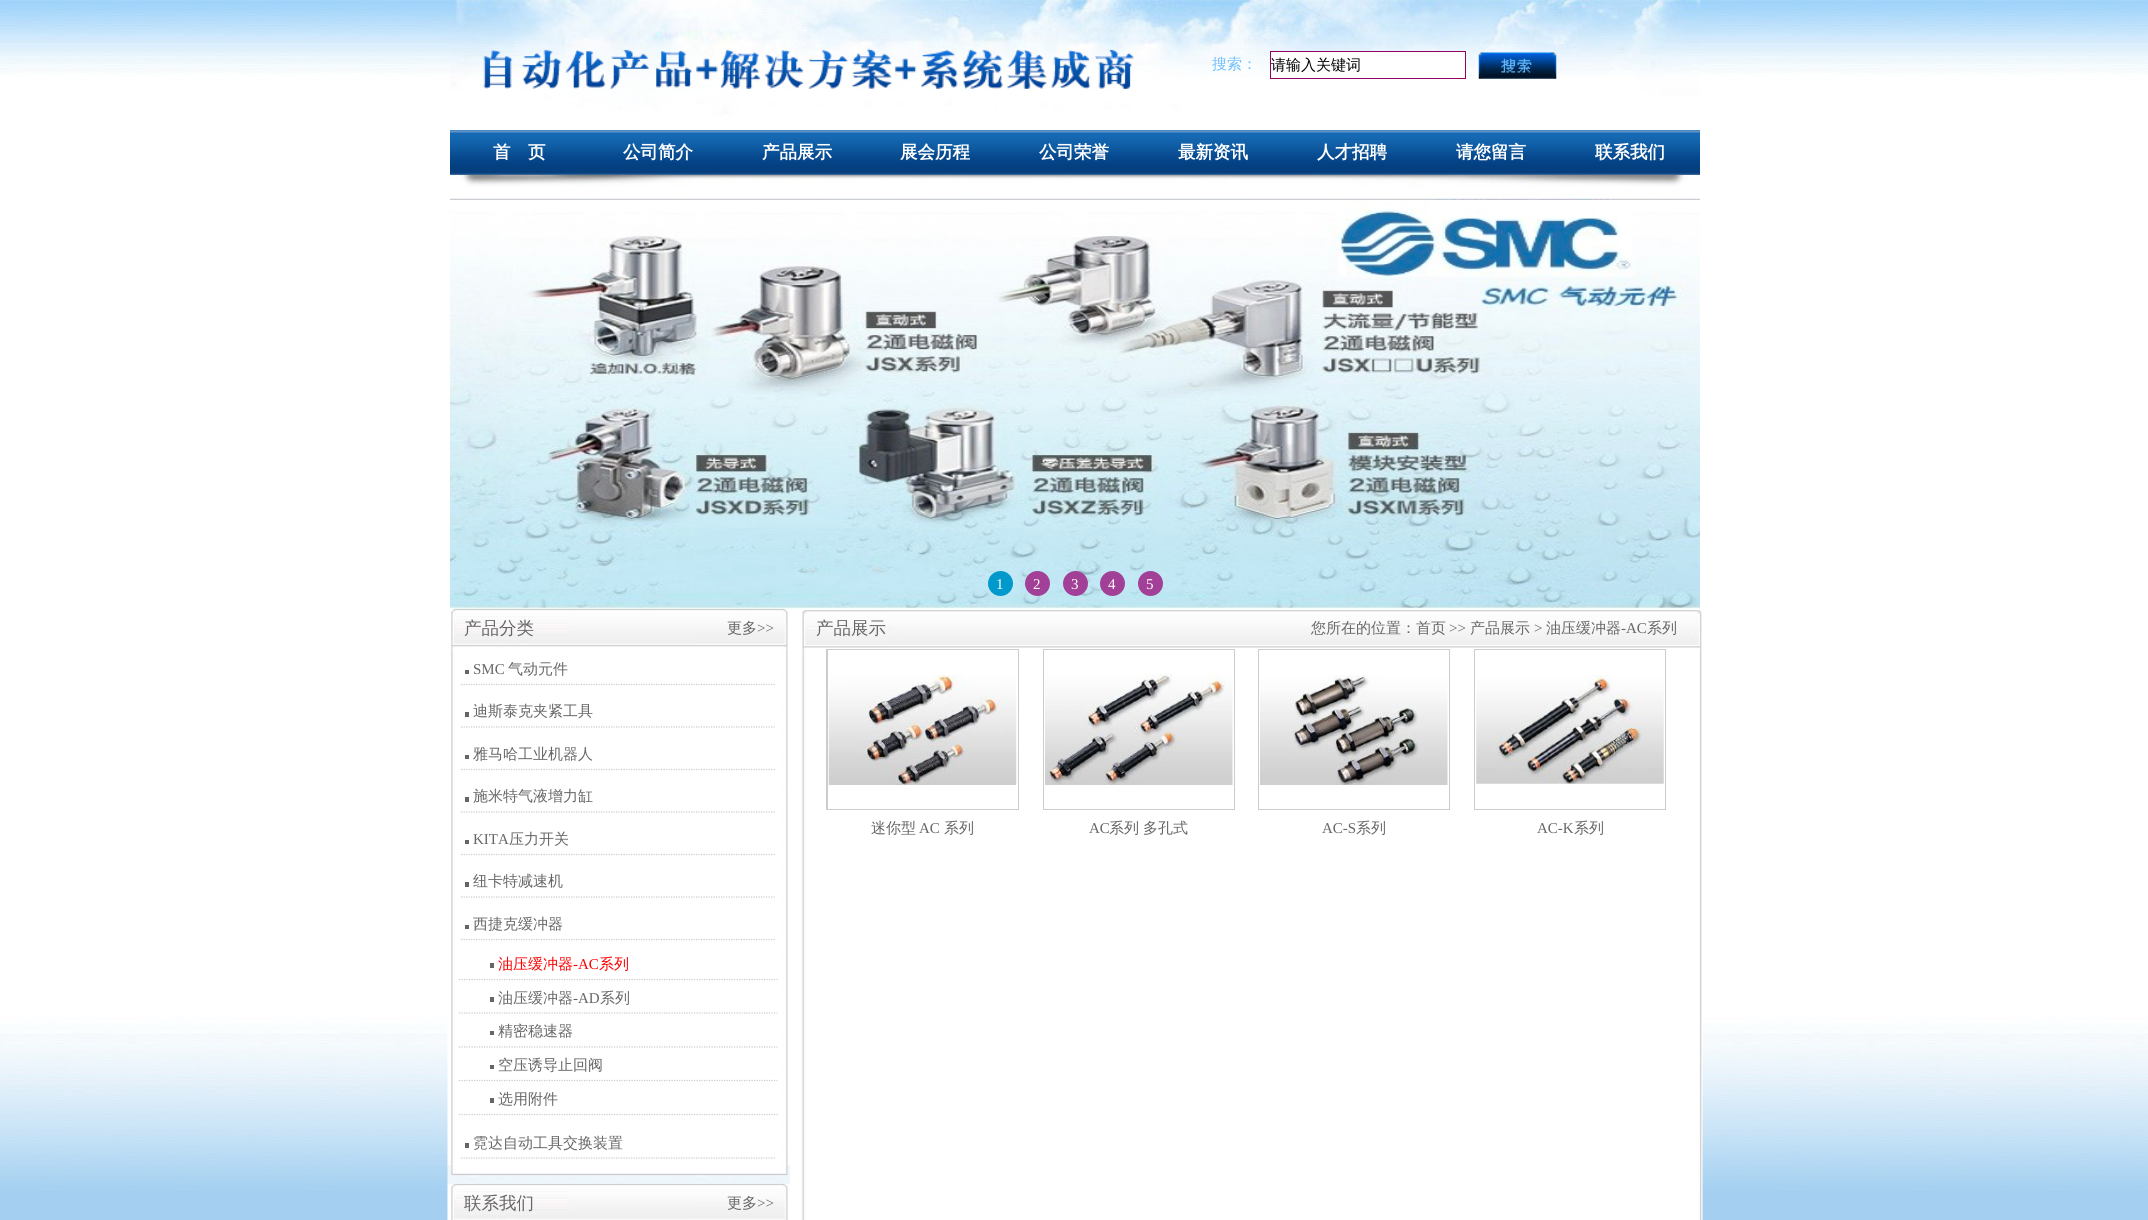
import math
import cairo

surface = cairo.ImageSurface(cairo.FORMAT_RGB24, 2148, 1220)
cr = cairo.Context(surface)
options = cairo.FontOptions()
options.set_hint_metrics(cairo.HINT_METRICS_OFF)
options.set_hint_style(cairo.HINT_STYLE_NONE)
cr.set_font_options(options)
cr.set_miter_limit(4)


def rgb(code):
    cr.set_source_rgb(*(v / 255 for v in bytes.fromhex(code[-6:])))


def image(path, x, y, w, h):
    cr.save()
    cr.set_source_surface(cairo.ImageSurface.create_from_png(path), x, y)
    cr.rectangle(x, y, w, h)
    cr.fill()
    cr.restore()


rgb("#a4cff1")
cr.paint()
image("img/1.png", 0, 0, 2148, 1190)
image("img/2.png", 450, 0, 1250, 116)
rgb("#ffffff")
cr.rectangle(1271, 52, 194, 24)
cr.fill()
cr.rectangle(1270.5, 51.5, 195, 27)
rgb("#8f0262")
cr.set_line_width(1)
cr.stroke()
image("img/3.png", 1478, 52, 79, 27)
image("img/4.png", 450, 130, 1250, 45)
image("img/5.png", 450, 175, 1250, 25)
image("img/7.png", 451, 608, 337, 41)
image("img/6.png", 450, 200, 1250, 409)
rgb("#0099cc")
cr.arc(1000.5, 583.5, 12.5, 0, 2 * math.pi)
cr.fill()
rgb("#a23f97")
cr.arc(1037.5, 583.5, 12.5, 0, 2 * math.pi)
cr.fill()
cr.arc(1075.5, 583.5, 12.5, 0, 2 * math.pi)
cr.fill()
cr.arc(1112.5, 583.5, 12.5, 0, 2 * math.pi)
cr.fill()
cr.arc(1150.5, 583.5, 12.5, 0, 2 * math.pi)
cr.fill()
rgb("#ffffff")
cr.rectangle(448, 1019, 342, 201)
cr.fill()
image("img/8.png", 447, 649, 341, 516)
cr.new_path()
cr.move_to(461, 684.5)
cr.line_to(775, 684.5)
rgb("#cccccc")
cr.set_line_width(1.2)
cr.set_dash([1.25, 1.25])
cr.stroke()
rgb("#666666")
cr.rectangle(465, 670, 4, 4)
cr.fill()
cr.new_path()
cr.move_to(461, 727)
cr.line_to(775, 727)
rgb("#cccccc")
cr.stroke()
rgb("#666666")
cr.rectangle(465, 712, 4, 5)
cr.fill()
cr.new_path()
cr.move_to(461, 769.5)
cr.line_to(775, 769.5)
rgb("#cccccc")
cr.stroke()
rgb("#666666")
cr.rectangle(465, 755, 4, 4)
cr.fill()
cr.new_path()
cr.move_to(461, 812)
cr.line_to(775, 812)
rgb("#cccccc")
cr.stroke()
rgb("#666666")
cr.rectangle(465, 797, 4, 5)
cr.fill()
cr.new_path()
cr.move_to(461, 854.5)
cr.line_to(775, 854.5)
rgb("#cccccc")
cr.stroke()
rgb("#666666")
cr.rectangle(465, 840, 4, 4)
cr.fill()
cr.new_path()
cr.move_to(461, 897)
cr.line_to(775, 897)
rgb("#cccccc")
cr.stroke()
rgb("#666666")
cr.rectangle(465, 882, 4, 5)
cr.fill()
cr.new_path()
cr.move_to(461, 939.5)
cr.line_to(775, 939.5)
rgb("#cccccc")
cr.stroke()
rgb("#666666")
cr.rectangle(465, 925, 4, 4)
cr.fill()
cr.new_path()
cr.move_to(459, 979.5)
cr.line_to(777.5, 979.5)
rgb("#cccccc")
cr.stroke()
rgb("#666666")
cr.rectangle(490, 963, 4, 5)
cr.fill()
cr.new_path()
cr.move_to(459, 1013)
cr.line_to(777.5, 1013)
rgb("#cccccc")
cr.stroke()
rgb("#666666")
cr.rectangle(490, 997, 4, 5)
cr.fill()
cr.new_path()
cr.move_to(459, 1047)
cr.line_to(777.5, 1047)
rgb("#cccccc")
cr.stroke()
rgb("#666666")
cr.rectangle(490, 1031, 4, 4)
cr.fill()
cr.new_path()
cr.move_to(459, 1080.5)
cr.line_to(777.5, 1080.5)
rgb("#cccccc")
cr.stroke()
rgb("#666666")
cr.rectangle(490, 1065, 4, 4)
cr.fill()
cr.new_path()
cr.move_to(459, 1114.5)
cr.line_to(777.5, 1114.5)
rgb("#cccccc")
cr.stroke()
rgb("#666666")
cr.rectangle(490, 1098, 4, 5)
cr.fill()
cr.new_path()
cr.move_to(461, 1158)
cr.line_to(775, 1158)
rgb("#cccccc")
cr.stroke()
rgb("#666666")
cr.rectangle(465, 1143, 4, 5)
cr.fill()
image("img/10.png", 447, 1183, 341, 37)
image("img/9.png", 447, 1165, 343, 19)
image("img/11.png", 802, 610, 900, 39)
image("img/12.png", 790, 649, 913, 571)
rgb("#cccccc")
cr.rectangle(826, 649, 193, 161)
cr.fill()
rgb("#ffffff")
cr.rectangle(828, 650, 190, 159)
cr.fill()
image("img/13.png", 828, 675, 189, 110)
rgb("#cccccc")
cr.rectangle(1043, 649, 192, 161)
cr.fill()
rgb("#ffffff")
cr.rectangle(1044, 650, 190, 159)
cr.fill()
image("img/14.png", 1045, 673, 188, 112)
rgb("#cccccc")
cr.rectangle(1258, 649, 192, 161)
cr.fill()
rgb("#ffffff")
cr.rectangle(1259, 650, 190, 159)
cr.fill()
image("img/15.png", 1260, 675, 188, 110)
rgb("#cccccc")
cr.rectangle(1474, 649, 192, 161)
cr.fill()
rgb("#ffffff")
cr.rectangle(1475, 650, 190, 159)
cr.fill()
image("img/16.png", 1476, 675, 188, 109)
cr.select_font_face("WenQuanYi Zen Hei Medium")
cr.set_font_size(15)
rgb("#70bfff")
cr.move_to(1212, 69)
cr.show_text("搜索：")
rgb("#000000")
cr.move_to(1271, 70)
cr.show_text("请输入关键词")
cr.select_font_face("WenQuanYi Zen Hei", cairo.FONT_SLANT_NORMAL, cairo.FONT_WEIGHT_BOLD)
cr.set_font_size(17.5)
rgb("#ffffff")
for x, y, s in [
    (493, 158, "首　页"),
    (623, 158, "公司简介"),
    (762, 158, "产品展示"),
    (900, 158, "展会历程"),
    (1039, 158, "公司荣誉"),
    (1178, 158, "最新资讯"),
    (1317, 158, "人才招聘"),
    (1456, 158, "请您留言"),
    (1595, 158, "联系我们"),
]:
    cr.move_to(x, y)
    cr.show_text(s)
cr.select_font_face("Liberation Serif")
cr.set_font_size(15)
for x, y, s in [
    (996, 589, "1"),
    (1033, 589, "2"),
    (1071, 589, "3"),
    (1108, 589, "4"),
    (1146, 589, "5"),
]:
    cr.move_to(x, y)
    cr.show_text(s)
cr.select_font_face("WenQuanYi Zen Hei Medium")
cr.set_font_size(17.5)
rgb("#666666")
cr.move_to(464, 634)
cr.show_text("产品分类")
cr.set_font_size(15)
cr.move_to(727, 633)
cr.show_text("更多")
cr.select_font_face("Liberation Serif")
cr.move_to(757, 633)
cr.show_text(">>")
cr.move_to(473, 674)
cr.show_text("SMC")
cr.select_font_face("WenQuanYi Zen Hei Medium")
for x, y, s in [
    (508, 674, "气动元件"),
    (473, 716, "迪斯泰克夹紧工具"),
    (473, 759, "雅马哈工业机器人"),
    (473, 801, "施米特气液增力缸"),
]:
    cr.move_to(x, y)
    cr.show_text(s)
cr.select_font_face("Liberation Serif")
cr.move_to(473, 844)
cr.show_text("KITA")
cr.select_font_face("WenQuanYi Zen Hei Medium")
for x, y, s in [
    (509, 844, "压力开关"),
    (473, 886, "纽卡特减速机"),
    (473, 929, "西捷克缓冲器"),
]:
    cr.move_to(x, y)
    cr.show_text(s)
rgb("#ff0000")
cr.move_to(498, 969)
cr.show_text("油压缓冲器")
cr.select_font_face("Liberation Serif")
cr.move_to(573, 969)
cr.show_text("-AC")
cr.select_font_face("WenQuanYi Zen Hei Medium")
cr.move_to(599, 969)
cr.show_text("系列")
rgb("#666666")
cr.move_to(498, 1003)
cr.show_text("油压缓冲器")
cr.select_font_face("Liberation Serif")
cr.move_to(573, 1003)
cr.show_text("-AD")
cr.select_font_face("WenQuanYi Zen Hei Medium")
for x, y, s in [
    (600, 1003, "系列"),
    (498, 1036, "精密稳速器"),
    (498, 1070, "空压诱导止回阀"),
    (498, 1104, "选用附件"),
    (473, 1148, "霓达自动工具交换装置"),
]:
    cr.move_to(x, y)
    cr.show_text(s)
cr.set_font_size(17.5)
cr.move_to(464, 1209)
cr.show_text("联系我们")
cr.set_font_size(15)
cr.move_to(727, 1208)
cr.show_text("更多")
cr.select_font_face("Liberation Serif")
cr.move_to(757, 1208)
cr.show_text(">>")
cr.select_font_face("WenQuanYi Zen Hei Medium")
cr.set_font_size(17.5)
cr.move_to(816, 634)
cr.show_text("产品展示")
cr.set_font_size(15)
cr.move_to(1311, 633)
cr.show_text("您所在的位置：首页")
cr.select_font_face("Liberation Serif")
cr.move_to(1449, 633)
cr.show_text(">>")
cr.select_font_face("WenQuanYi Zen Hei Medium")
cr.move_to(1470, 633)
cr.show_text("产品展示")
cr.select_font_face("Liberation Serif")
cr.move_to(1534, 633)
cr.show_text(">")
cr.select_font_face("WenQuanYi Zen Hei Medium")
cr.move_to(1546, 633)
cr.show_text("油压缓冲器")
cr.select_font_face("Liberation Serif")
cr.move_to(1621, 633)
cr.show_text("-AC")
cr.select_font_face("WenQuanYi Zen Hei Medium")
cr.move_to(1647, 633)
cr.show_text("系列")
cr.move_to(871, 833)
cr.show_text("迷你型")
cr.select_font_face("Liberation Serif")
cr.move_to(919, 833)
cr.show_text("AC")
cr.select_font_face("WenQuanYi Zen Hei Medium")
cr.move_to(944, 833)
cr.show_text("系列")
cr.select_font_face("Liberation Serif")
cr.move_to(1089, 833)
cr.show_text("AC")
cr.select_font_face("WenQuanYi Zen Hei Medium")
cr.move_to(1109, 833)
cr.show_text("系列")
cr.move_to(1143, 833)
cr.show_text("多孔式")
cr.select_font_face("Liberation Serif")
cr.move_to(1322, 833)
cr.show_text("AC-S")
cr.select_font_face("WenQuanYi Zen Hei Medium")
cr.move_to(1356, 833)
cr.show_text("系列")
cr.select_font_face("Liberation Serif")
cr.move_to(1537, 833)
cr.show_text("AC-K")
cr.select_font_face("WenQuanYi Zen Hei Medium")
cr.move_to(1574, 833)
cr.show_text("系列")
surface.write_to_png("page.png")
